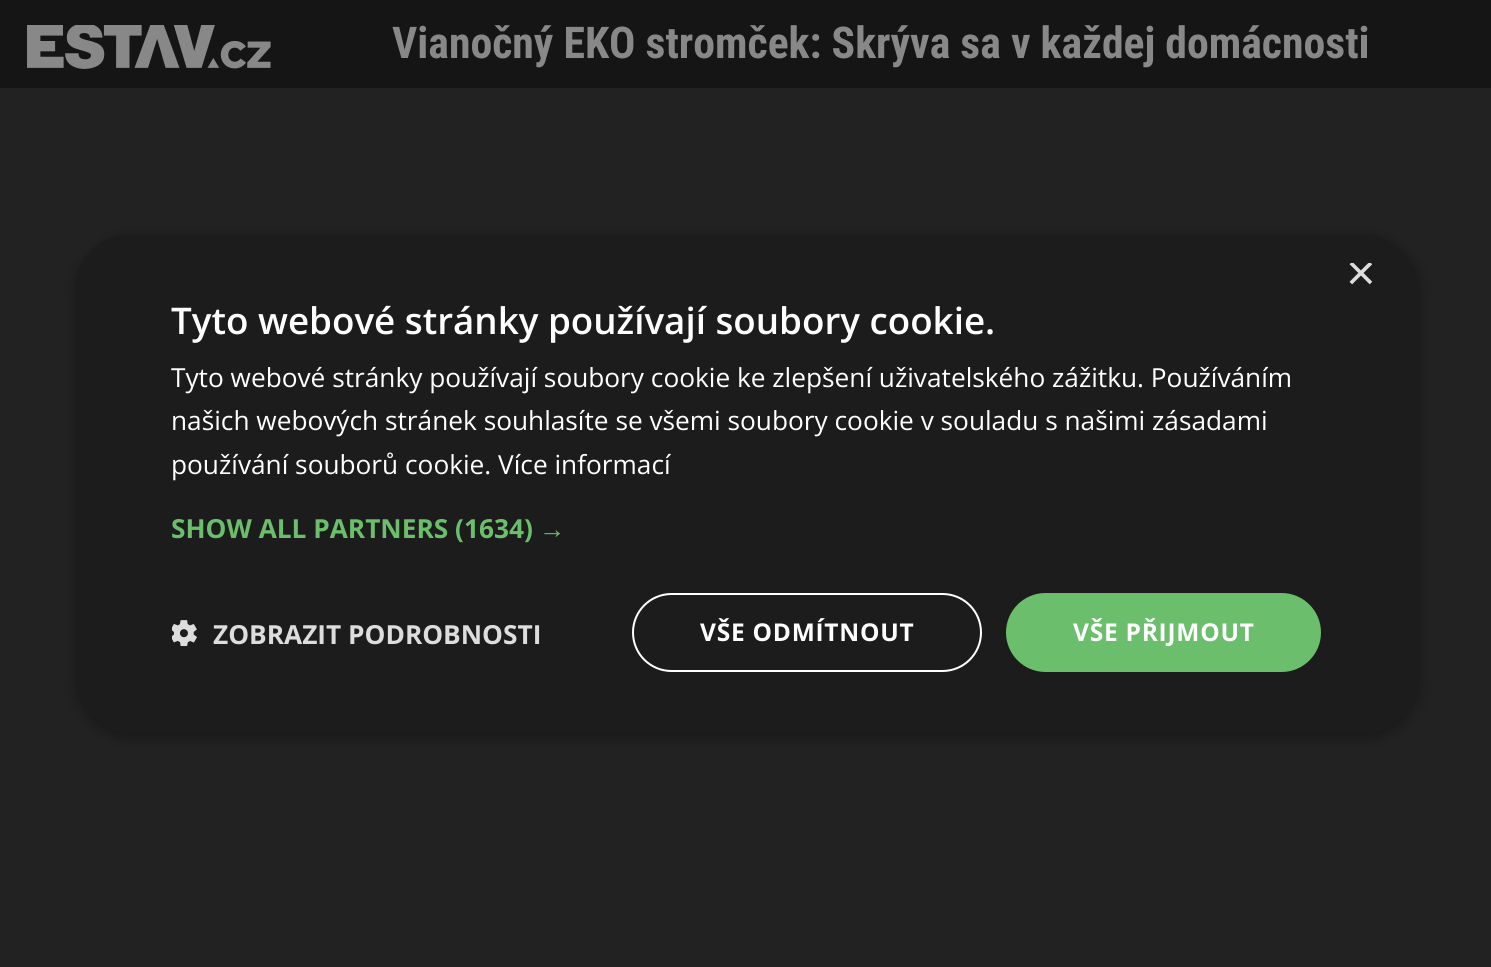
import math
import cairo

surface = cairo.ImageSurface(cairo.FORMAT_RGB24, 1491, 967)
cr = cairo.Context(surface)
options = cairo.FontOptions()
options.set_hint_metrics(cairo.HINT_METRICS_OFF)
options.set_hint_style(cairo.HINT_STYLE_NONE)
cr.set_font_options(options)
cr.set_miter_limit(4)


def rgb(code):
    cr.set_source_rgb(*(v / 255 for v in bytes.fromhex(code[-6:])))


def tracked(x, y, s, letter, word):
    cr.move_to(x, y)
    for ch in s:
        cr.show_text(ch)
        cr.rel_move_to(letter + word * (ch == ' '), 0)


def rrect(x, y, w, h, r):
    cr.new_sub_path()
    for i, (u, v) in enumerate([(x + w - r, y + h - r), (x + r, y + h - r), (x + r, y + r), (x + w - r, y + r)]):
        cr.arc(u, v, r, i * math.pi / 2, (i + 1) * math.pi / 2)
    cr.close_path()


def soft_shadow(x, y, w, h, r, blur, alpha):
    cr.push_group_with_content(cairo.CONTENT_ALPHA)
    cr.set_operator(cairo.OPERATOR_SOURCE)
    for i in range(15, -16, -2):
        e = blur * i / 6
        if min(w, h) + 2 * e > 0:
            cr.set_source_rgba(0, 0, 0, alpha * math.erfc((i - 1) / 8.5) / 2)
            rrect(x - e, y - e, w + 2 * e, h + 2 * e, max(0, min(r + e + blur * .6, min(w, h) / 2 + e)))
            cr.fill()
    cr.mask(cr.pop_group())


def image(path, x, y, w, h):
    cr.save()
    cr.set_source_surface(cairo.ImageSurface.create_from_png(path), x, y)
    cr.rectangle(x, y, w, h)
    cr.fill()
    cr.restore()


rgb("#222222")
cr.paint()
rgb("#151515")
cr.rectangle(0, 0, 1491, 88)
cr.fill()
image("img/1.png", 27, 25, 244, 44)
rgb("#000000")
soft_shadow(77, 238, 1342, 499, 53, 7, 0.35)
rgb("#1c1c1c")
rrect(75, 235, 1343, 498, 53)
cr.fill()
image("img/2.png", 172, 620, 25, 26)
rrect(633, 594, 348, 77, 38.5)
rgb("#ffffff")
cr.stroke()
rgb("#6bbe6b")
rrect(1006, 593, 315, 79, 39.5)
cr.fill()
cr.select_font_face("Roboto Condensed", cairo.FONT_SLANT_NORMAL, cairo.FONT_WEIGHT_BOLD)
cr.set_font_size(43.75)
rgb("#888888")
cr.move_to(392, 58)
cr.show_text("Vianočný EKO stromček: Skrýva sa v každej domácnosti")
cr.save()
cr.rectangle(1348, 263, 26, 26)
cr.clip()
cr.select_font_face("Liberation Sans")
cr.set_font_size(51)
rgb("#dddddd")
cr.move_to(1346, 290)
cr.show_text("×")
cr.restore()
cr.select_font_face("Open Sans SemiBold")
cr.set_font_size(36.75)
rgb("#ffffff")
cr.move_to(171, 334)
cr.show_text("Tyto webové stránky používají soubory cookie.")
cr.select_font_face("Open Sans")
cr.set_font_size(26.25)
for x, y, s in [
    (171, 387, "Tyto webové stránky používají soubory cookie ke zlepšení uživatelského zážitku. Používáním"),
    (171, 430, "našich webových stránek souhlasíte se všemi soubory cookie v souladu s našimi zásadami"),
    (171, 474, "používání souborů cookie. Více informací"),
]:
    cr.move_to(x, y)
    cr.show_text(s)
cr.select_font_face("Open Sans", cairo.FONT_SLANT_NORMAL, cairo.FONT_WEIGHT_BOLD)
rgb("#6bbe6b")
cr.move_to(171, 538)
cr.show_text("SHOW ALL PARTNERS (1634)")
cr.select_font_face("Liberation Sans", cairo.FONT_SLANT_NORMAL, cairo.FONT_WEIGHT_BOLD)
cr.move_to(539, 538)
cr.show_text("→")
cr.select_font_face("Open Sans", cairo.FONT_SLANT_NORMAL, cairo.FONT_WEIGHT_BOLD)
rgb("#dddddd")
cr.move_to(213, 644)
cr.show_text("ZOBRAZIT PODROBNOSTI")
cr.set_font_size(24.5)
rgb("#ffffff")
tracked(700, 641, "VŠE ODMÍTNOUT", 0.75, 0)
tracked(1073, 641, "VŠE PŘIJMOUT", 0.75, 0)
surface.write_to_png("page.png")
